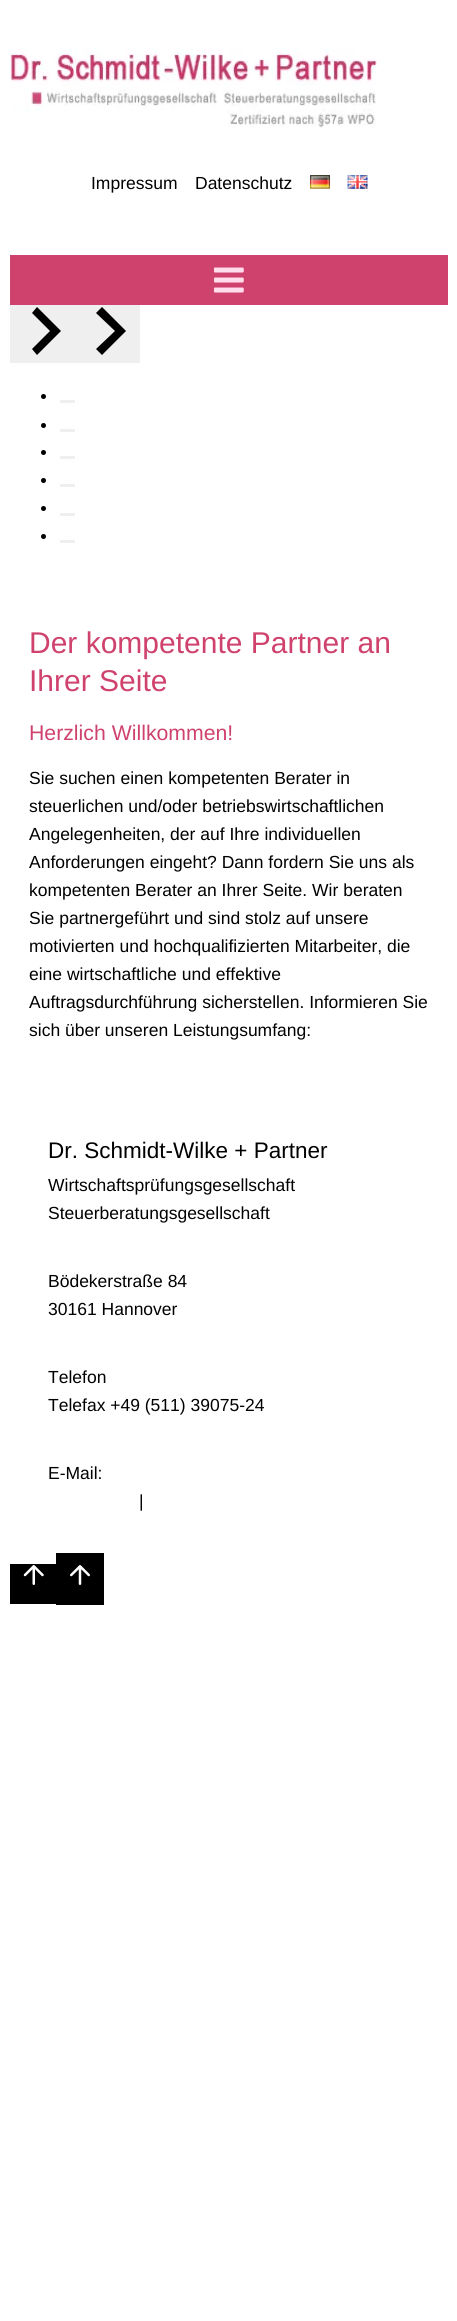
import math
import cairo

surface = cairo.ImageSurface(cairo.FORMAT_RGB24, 457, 2321)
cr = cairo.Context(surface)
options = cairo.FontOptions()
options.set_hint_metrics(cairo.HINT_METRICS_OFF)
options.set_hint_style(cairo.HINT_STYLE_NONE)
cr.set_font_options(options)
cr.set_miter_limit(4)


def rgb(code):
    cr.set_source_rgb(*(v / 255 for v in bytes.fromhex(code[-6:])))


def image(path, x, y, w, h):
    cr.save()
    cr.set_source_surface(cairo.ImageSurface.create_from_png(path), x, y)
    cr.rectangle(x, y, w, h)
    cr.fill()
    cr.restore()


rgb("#ffffff")
cr.paint()
image("img/1.png", 10, 49, 367, 79)
image("img/2.png", 310, 175, 20, 14)
image("img/3.png", 347, 175, 21, 14)
rgb("#d0426e")
cr.rectangle(10, 255, 438, 50)
cr.fill()
image("img/4.png", 214, 267, 30, 26)
rgb("#efefef")
cr.rectangle(10, 305, 130, 58)
cr.fill()
rgb("#000000")
cr.new_path()
cr.move_to(37, 307)
cr.line_to(32, 313)
cr.line_to(50, 331)
cr.line_to(32, 349)
cr.line_to(37, 355)
cr.line_to(61, 331)
cr.close_path()
cr.fill()
cr.new_path()
cr.move_to(102, 307)
cr.line_to(96, 313)
cr.line_to(115, 331)
cr.line_to(96, 349)
cr.line_to(102, 355)
cr.line_to(126, 331)
cr.close_path()
cr.fill()
cr.arc(43.5, 396.5, 2.5, 0, 2 * math.pi)
cr.fill()
rgb("#efefef")
cr.rectangle(60, 400, 15, 3)
cr.fill()
rgb("#000000")
cr.arc(43.5, 425.5, 2.5, 0, 2 * math.pi)
cr.fill()
rgb("#efefef")
cr.rectangle(60, 429, 15, 3)
cr.fill()
rgb("#000000")
cr.arc(43.5, 452.5, 2.5, 0, 2 * math.pi)
cr.fill()
rgb("#efefef")
cr.rectangle(60, 456, 15, 3)
cr.fill()
rgb("#000000")
cr.arc(43.5, 480.5, 2.5, 0, 2 * math.pi)
cr.fill()
rgb("#efefef")
cr.rectangle(60, 484, 15, 3)
cr.fill()
rgb("#000000")
cr.arc(43.5, 508.5, 2.5, 0, 2 * math.pi)
cr.fill()
rgb("#efefef")
cr.rectangle(60, 513, 15, 3)
cr.fill()
rgb("#000000")
cr.arc(43.5, 536.5, 2.5, 0, 2 * math.pi)
cr.fill()
for x, y, w, h, color in [
    (60, 540, 15, 3, "#efefef"),
    (10, 1564, 46, 40, "#000000"),
    (56, 1553, 48, 52, "#000000"),
]:
    rgb(color)
    cr.rectangle(x, y, w, h)
    cr.fill()
image("img/5.png", 70, 1565, 20, 20)
image("img/6.png", 23, 1565, 21, 20)
cr.select_font_face("Liberation Sans")
cr.set_font_size(17.5)
cr.move_to(91, 189)
cr.show_text("Impressum")
cr.move_to(195, 189)
cr.show_text("Datenschutz")
cr.set_font_size(30)
rgb("#d0426e")
cr.move_to(29, 653)
cr.show_text("Der kompetente Partner an")
cr.move_to(29, 691)
cr.show_text("Ihrer Seite")
cr.set_font_size(21.25)
cr.move_to(29, 740)
cr.show_text("Herzlich Willkommen!")
cr.set_font_size(17.5)
rgb("#000000")
for x, y, s in [
    (29, 784, "Sie suchen einen kompetenten Berater in"),
    (29, 812, "steuerlichen und/oder betriebswirtschaftlichen"),
    (29, 840, "Angelegenheiten, der auf Ihre individuellen"),
    (29, 868, "Anforderungen eingeht? Dann fordern Sie uns als"),
    (29, 896, "kompetenten Berater an Ihrer Seite. Wir beraten"),
    (29, 924, "Sie partnergeführt und sind stolz auf unsere"),
    (29, 952, "motivierten und hochqualifizierten Mitarbeiter, die"),
    (29, 980, "eine wirtschaftliche und effektive"),
    (29, 1008, "Auftragsdurchführung sicherstellen. Informieren Sie"),
    (29, 1036, "sich über unseren Leistungsumfang:"),
]:
    cr.move_to(x, y)
    cr.show_text(s)
cr.set_font_size(22.5)
cr.move_to(48, 1158)
cr.show_text("Dr. Schmidt-Wilke + Partner")
cr.set_font_size(17.5)
for x, y, s in [
    (48, 1191, "Wirtschaftsprüfungsgesellschaft"),
    (48, 1219, "Steuerberatungsgesellschaft"),
    (48, 1287, "Bödekerstraße 84"),
    (48, 1315, "30161 Hannover"),
    (48, 1383, "Telefon"),
    (48, 1411, "Telefax +49 (511) 39075-24"),
    (48, 1479, "E-Mail:"),
    (139, 1507, "|"),
]:
    cr.move_to(x, y)
    cr.show_text(s)
surface.write_to_png("page.png")
